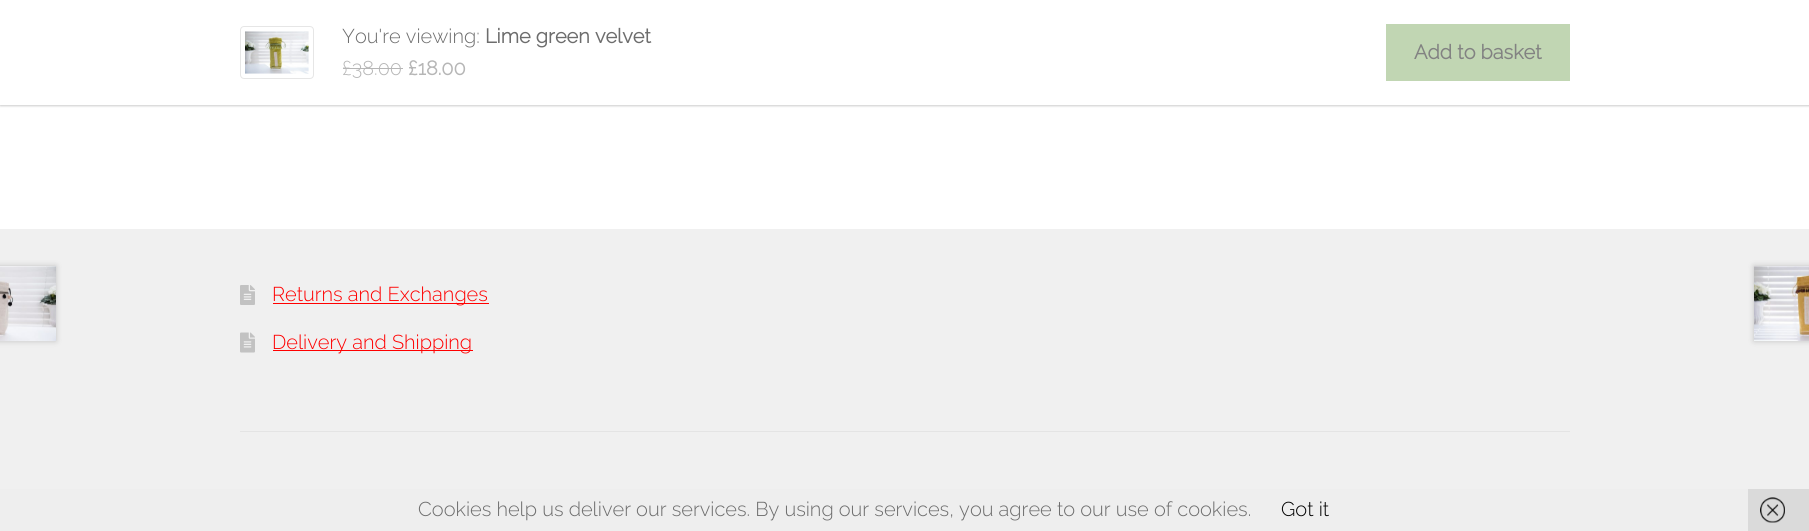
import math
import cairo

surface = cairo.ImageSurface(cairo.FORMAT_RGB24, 1809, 531)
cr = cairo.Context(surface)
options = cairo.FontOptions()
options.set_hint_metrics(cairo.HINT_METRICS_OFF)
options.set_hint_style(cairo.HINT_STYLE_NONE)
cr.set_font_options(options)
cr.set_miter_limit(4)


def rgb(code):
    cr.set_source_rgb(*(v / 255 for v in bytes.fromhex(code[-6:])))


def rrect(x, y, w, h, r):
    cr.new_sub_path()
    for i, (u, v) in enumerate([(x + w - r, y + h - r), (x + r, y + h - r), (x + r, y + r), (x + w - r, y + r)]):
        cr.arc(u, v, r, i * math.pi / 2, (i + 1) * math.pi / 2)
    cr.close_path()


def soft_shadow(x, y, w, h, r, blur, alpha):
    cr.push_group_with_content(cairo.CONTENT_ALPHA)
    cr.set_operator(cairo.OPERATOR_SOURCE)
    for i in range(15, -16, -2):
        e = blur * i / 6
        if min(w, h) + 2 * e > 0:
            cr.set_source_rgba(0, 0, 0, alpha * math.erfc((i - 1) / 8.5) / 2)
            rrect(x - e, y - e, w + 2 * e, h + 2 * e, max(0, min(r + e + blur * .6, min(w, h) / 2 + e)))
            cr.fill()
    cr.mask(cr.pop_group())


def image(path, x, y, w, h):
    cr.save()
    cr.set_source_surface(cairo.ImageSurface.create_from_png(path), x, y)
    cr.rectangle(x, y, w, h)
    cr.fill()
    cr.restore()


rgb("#ffffff")
cr.paint()
rgb("#000000")
soft_shadow(0, 1, 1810, 105, 0, 1, 0.2)
rgb("#ffffff")
cr.rectangle(0, 0, 1809, 105)
cr.fill()
rrect(240.5, 26.5, 73, 52, 3.5)
rgb("#e6e6e6")
cr.set_line_width(1)
cr.stroke()
image("img/1.png", 245, 31, 64, 43)
for x, y, w, h, color in [
    (343, 68, 60, 1, "#b6b6b6"),
    (1386, 24, 184, 57, "#c1d6b3"),
    (0, 229, 1809, 260, "#f0f0f0"),
]:
    rgb(color)
    cr.rectangle(x, y, w, h)
    cr.fill()
rgb("#000000")
soft_shadow(-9, 266, 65, 75, 0, 3, 0.2)
rgb("#ffffff")
cr.rectangle(0, 266, 56, 75)
cr.fill()
image("img/2.png", 0, 266, 56, 75)
rgb("#000000")
soft_shadow(1754, 266, 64, 75, 0, 3, 0.2)
rgb("#ffffff")
cr.rectangle(1754, 266, 55, 75)
cr.fill()
image("img/3.png", 1754, 266, 55, 75)
rgb("#eeeeee")
cr.rectangle(0, 489, 1748, 42)
cr.fill()
rgb("#e4e4e4")
cr.rectangle(240, 431, 1330, 1)
cr.fill()
image("img/4.png", 240, 285, 15, 20)
rgb("#ff0000")
cr.rectangle(273, 303, 216, 1)
cr.fill()
image("img/5.png", 240, 332, 15, 21)
cr.rectangle(273, 350, 200, 1)
cr.fill()
rgb("#dadada")
cr.rectangle(1748, 489, 61, 42)
cr.fill()
image("img/6.png", 1760, 497, 25, 26)
cr.select_font_face("Raleway Thin")
cr.set_font_size(20)
rgb("#6d6d6d")
cr.move_to(342, 43)
cr.show_text("You're viewing:")
cr.select_font_face("Raleway", cairo.FONT_SLANT_NORMAL, cairo.FONT_WEIGHT_BOLD)
cr.move_to(485, 43)
cr.show_text("Lime green velvet")
cr.select_font_face("Raleway Thin")
rgb("#b6b6b6")
cr.move_to(342, 75)
cr.show_text("£38.00")
cr.select_font_face("Raleway", cairo.FONT_SLANT_NORMAL, cairo.FONT_WEIGHT_BOLD)
cr.move_to(408, 75)
cr.show_text("£18.00")
rgb("#828282")
cr.move_to(1414, 59)
cr.show_text("Add to basket")
cr.select_font_face("Raleway Thin")
rgb("#ff0000")
cr.move_to(272, 301)
cr.show_text("Returns and Exchanges")
cr.move_to(272, 349)
cr.show_text("Delivery and Shipping")
rgb("#6d6d6d")
cr.move_to(418, 516)
cr.show_text("Cookies help us deliver our services. By using our services, you agree to our use of cookies.")
rgb("#000000")
cr.move_to(1281, 516)
cr.show_text("Got it")
surface.write_to_png("page.png")
